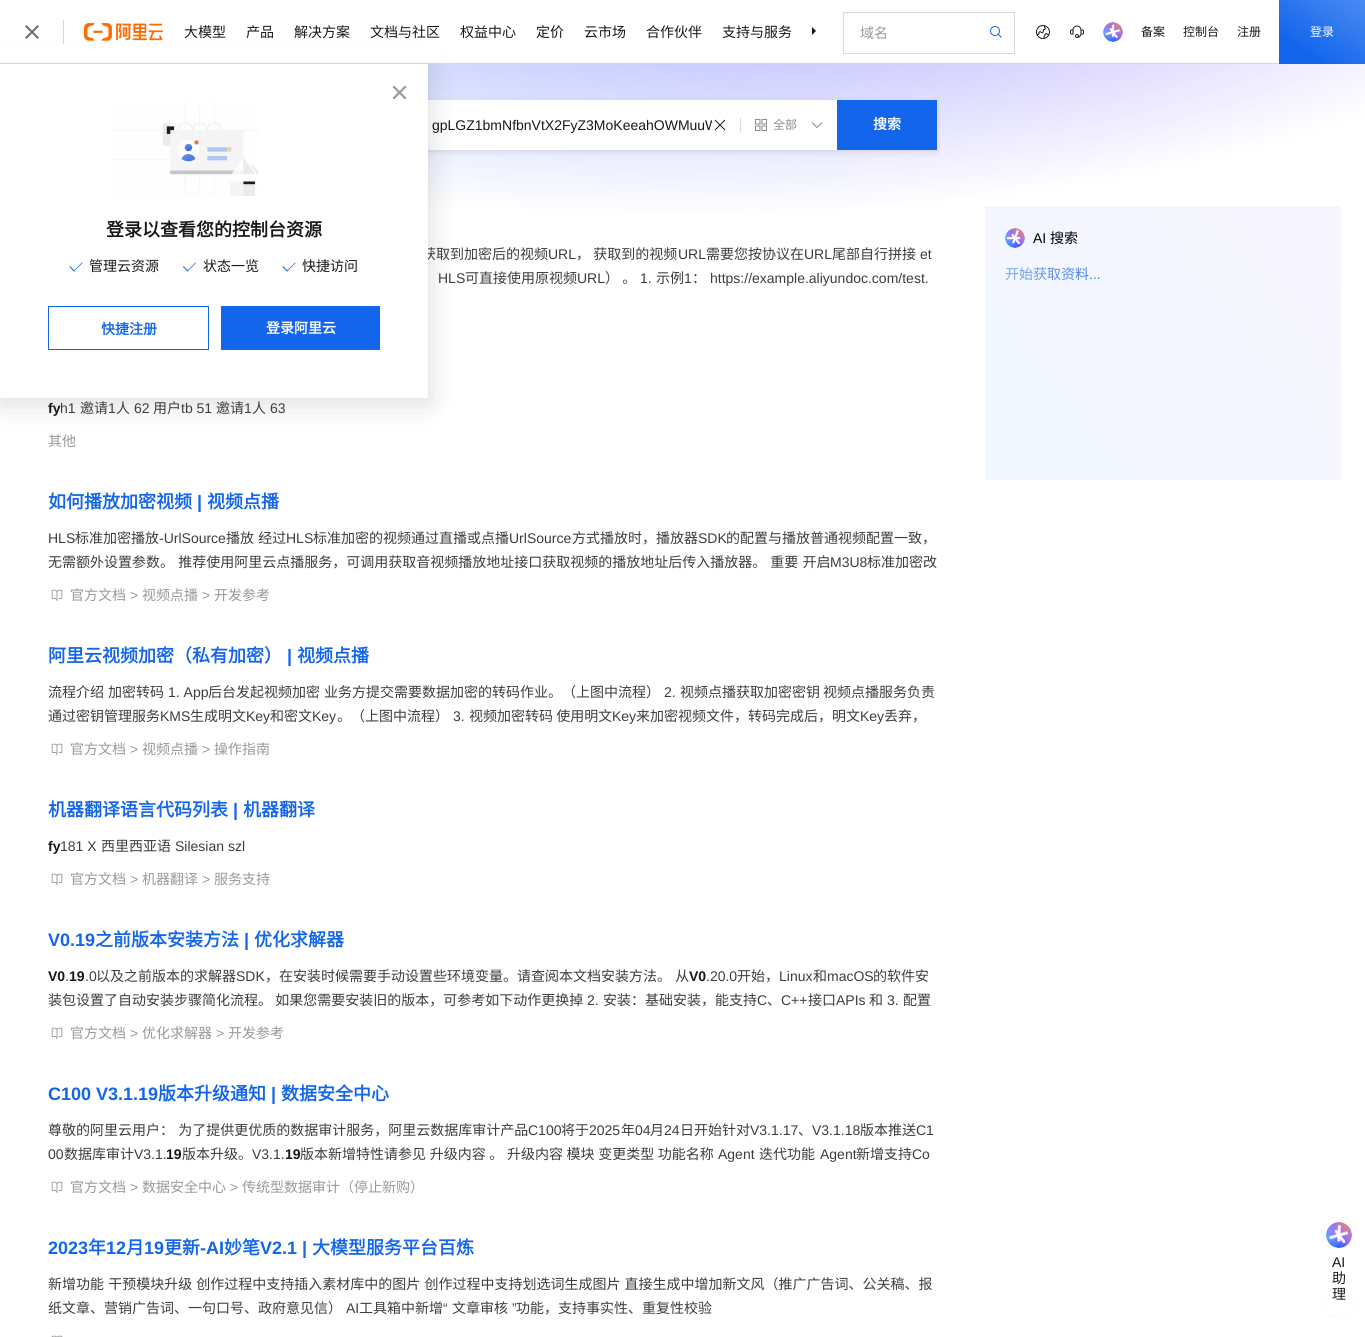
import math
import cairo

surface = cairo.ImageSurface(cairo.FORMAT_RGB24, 1365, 1337)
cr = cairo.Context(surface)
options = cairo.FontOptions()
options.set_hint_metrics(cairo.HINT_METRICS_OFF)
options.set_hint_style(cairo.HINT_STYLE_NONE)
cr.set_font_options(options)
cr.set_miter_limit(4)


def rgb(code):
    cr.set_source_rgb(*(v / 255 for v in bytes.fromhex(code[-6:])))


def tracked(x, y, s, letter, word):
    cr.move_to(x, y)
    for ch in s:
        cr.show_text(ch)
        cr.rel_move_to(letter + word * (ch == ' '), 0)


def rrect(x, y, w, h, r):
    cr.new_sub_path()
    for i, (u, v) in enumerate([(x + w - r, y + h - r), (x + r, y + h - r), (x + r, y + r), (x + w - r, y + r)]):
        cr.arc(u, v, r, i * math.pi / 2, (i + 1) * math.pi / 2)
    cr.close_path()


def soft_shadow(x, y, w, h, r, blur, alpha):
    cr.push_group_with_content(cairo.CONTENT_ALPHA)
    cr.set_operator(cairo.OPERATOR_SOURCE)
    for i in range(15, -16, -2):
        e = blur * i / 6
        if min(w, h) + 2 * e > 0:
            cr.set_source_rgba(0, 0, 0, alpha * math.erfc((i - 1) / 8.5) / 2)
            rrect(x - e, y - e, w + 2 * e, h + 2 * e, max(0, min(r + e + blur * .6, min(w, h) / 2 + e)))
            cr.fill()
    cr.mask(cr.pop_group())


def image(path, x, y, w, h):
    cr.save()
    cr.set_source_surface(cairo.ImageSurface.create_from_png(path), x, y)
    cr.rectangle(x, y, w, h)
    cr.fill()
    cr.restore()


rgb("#ffffff")
cr.paint()
gradient = cairo.LinearGradient(1356, 6.4, -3.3, 246)
gradient.add_color_stop_rgba(0.2, 0.384, 0.29, 1, 1)
gradient.add_color_stop_rgba(1, 0.29, 0.573, 1, 1)
cr.set_source(gradient)
cr.rectangle(428, 64, 937, 122)
cr.fill()
gradient = cairo.RadialGradient(0, 0, 0, 0, 0, 1)
gradient.set_matrix(cairo.Matrix(1 / 929, 0, 0, 1 / 307, -1 * 683 / 929, -1 * -90 / 307))
gradient.add_color_stop_rgba(0, 1, 1, 1, 0.35)
gradient.add_color_stop_rgba(0.35, 1, 1, 1, 0.6)
gradient.add_color_stop_rgba(1, 1, 1, 1, 1)
cr.set_source(gradient)
cr.rectangle(428, 64, 937, 122)
cr.fill()
rgb("#000000")
soft_shadow(48, 102, 889, 50, 0, 3, 0.1)
rgb("#ffffff")
cr.rectangle(428, 100, 409, 50)
cr.fill()
gradient = cairo.LinearGradient(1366, 71, -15, 314)
gradient.add_color_stop_rgba(0.2, 0.384, 0.29, 1, 1)
gradient.add_color_stop_rgba(1, 0.29, 0.573, 1, 1)
cr.set_source(gradient)
cr.rectangle(428, 186, 635, 28)
cr.fill()
gradient = cairo.RadialGradient(0, 0, 0, 0, 0, 1)
gradient.set_matrix(cairo.Matrix(1 / 928, 0, 0, 1 / 307, -1 * 683 / 928, -1 * -90 / 307))
gradient.add_color_stop_rgba(0, 1, 1, 1, 0.35)
gradient.add_color_stop_rgba(0.35, 1, 1, 1, 0.6)
gradient.add_color_stop_rgba(1, 1, 1, 1, 1)
cr.set_source(gradient)
cr.rectangle(428, 186, 635, 28)
cr.fill()
rgb("#000000")
soft_shadow(0, 68, 428, 334, 0, 15, 0.15)
rgb("#ffffff")
cr.rectangle(0, 45, 441, 18)
cr.fill()
rgb("#d7d8d9")
cr.rectangle(0, 63, 1279, 1)
cr.fill()
rgb("#717171")
cr.new_path()
cr.move_to(26.5, 25)
cr.line_to(39, 37.5)
cr.line_to(37.5, 39)
cr.line_to(25, 26.5)
cr.close_path()
cr.fill()
cr.new_path()
cr.move_to(25, 37.5)
cr.line_to(37.5, 25)
cr.line_to(39, 26.5)
cr.line_to(26.5, 39)
cr.close_path()
cr.fill()
rgb("#d8d8d8")
cr.rectangle(63, 20, 1, 24)
cr.fill()
image("img/1.png", 84, 23, 79, 18)
rgb("#181818")
cr.new_path()
cr.move_to(812, 27)
cr.line_to(816, 31)
cr.line_to(812, 35)
cr.close_path()
cr.fill()
cr.rectangle(843.5, 12.5, 171, 41)
rgb("#d9d9d9")
cr.set_line_width(1)
cr.stroke()
image("img/2.png", 990, 26, 12, 12)
image("img/3.png", 1036, 25, 14, 14)
image("img/4.png", 1070, 25, 14, 13)
image("img/5.png", 1103, 22, 20, 20)
image("img/6.png", 1105, 24, 16, 15)
gradient = cairo.LinearGradient(1350, -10, 1294, 74)
gradient.add_color_stop_rgba(0, 0.294, 0.545, 0.945, 1)
gradient.add_color_stop_rgba(0.75, 0.075, 0.4, 0.925, 1)
cr.set_source(gradient)
cr.rectangle(1279, 0, 86, 64)
cr.fill()
image("img/7.png", 714, 119, 12, 12)
rgb("#d7d8d9")
cr.rectangle(740, 118, 1, 14)
cr.fill()
image("img/8.png", 755, 119, 12, 12)
image("img/9.png", 811, 122, 12, 6)
rgb("#1366ec")
cr.rectangle(837, 100, 100, 50)
cr.fill()
image("img/10.png", 51, 589, 12, 13)
image("img/10.png", 51, 743, 12, 13)
image("img/10.png", 51, 873, 12, 13)
image("img/10.png", 51, 1027, 12, 13)
image("img/10.png", 51, 1181, 12, 13)
image("img/11.png", 51, 1335, 12, 2)
gradient = cairo.LinearGradient(986, 481, 1340, 205)
gradient.add_color_stop_rgba(0, 0.949, 0.969, 1, 1)
gradient.add_color_stop_rgba(0.99, 0.969, 0.961, 1, 1)
cr.set_source(gradient)
cr.rectangle(985, 206, 356, 274)
cr.fill()
image("img/12.png", 1005, 228, 20, 20)
image("img/13.png", 1006, 230, 15, 14)
cr.save()
rrect(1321, 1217, 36, 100, 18)
cr.clip()
rgb("#c9e9ff")
soft_shadow(1271, 1167, 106, 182, 0, 4, 1)
rgb("#ded1ff")
soft_shadow(1271, 1167, 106, 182, 0, 4, 0.42)
rgb("#ffd8cc")
soft_shadow(1271, 1167, 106, 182, 0, 4, 0.37)
cr.restore()
rgb("#ffffff")
rrect(1321, 1217, 36, 100, 18)
cr.fill()
image("img/15.png", 1326, 1222, 26, 26)
image("img/16.png", 1328, 1224, 21, 20)
cr.select_font_face("Noto Sans CJK SC")
cr.set_font_size(14)
rgb("#181818")
for x, y, s in [
    (184, 37, "大模型"),
    (246, 37, "产品"),
    (294, 37, "解决方案"),
    (370, 37, "文档与社区"),
    (460, 37, "权益中心"),
    (536, 37, "定价"),
    (584, 37, "云市场"),
    (646, 37, "合作伙伴"),
    (722, 37, "支持与服务"),
]:
    cr.move_to(x, y)
    cr.show_text(s)
rgb("#999999")
cr.move_to(860, 38)
cr.show_text("域名")
cr.set_font_size(12)
rgb("#181818")
for x, y, s in [
    (1141, 36, "备案"),
    (1183, 36, "控制台"),
    (1237, 36, "注册"),
]:
    cr.move_to(x, y)
    cr.show_text(s)
rgb("#ffffff")
cr.move_to(1310, 36)
cr.show_text("登录")
cr.save()
cr.rectangle(60, 113, 652, 24)
cr.clip()
cr.select_font_face("Liberation Sans")
cr.set_font_size(14)
rgb("#181818")
cr.move_to(432, 130)
cr.show_text("gpLGZ1bmNfbnVtX2FyZ3MoKeeahOWMuuW")
cr.restore()
rgb("#8c8c8c")
cr.move_to(773, 129)
cr.show_text("全部")
cr.select_font_face("Noto Sans CJK SC", cairo.FONT_SLANT_NORMAL, cairo.FONT_WEIGHT_BOLD)
cr.set_font_size(14)
rgb("#ffffff")
cr.move_to(873, 129)
cr.show_text("搜索")
cr.select_font_face("Noto Sans CJK SC")
rgb("#3d3d3d")
cr.move_to(422, 259)
cr.show_text("获取到加密后的视频")
cr.select_font_face("Liberation Sans")
cr.move_to(548, 259)
cr.show_text("URL")
cr.select_font_face("Noto Sans CJK SC")
cr.move_to(576, 259)
cr.show_text("， 获取到的视频")
cr.select_font_face("Liberation Sans")
cr.move_to(678, 259)
cr.show_text("URL")
cr.select_font_face("Noto Sans CJK SC")
cr.move_to(706, 259)
cr.show_text("需要您按协议在")
cr.select_font_face("Liberation Sans")
cr.move_to(804, 259)
cr.show_text("URL")
cr.select_font_face("Noto Sans CJK SC")
cr.move_to(832, 259)
cr.show_text("尾部自行拼接")
cr.select_font_face("Liberation Sans")
cr.move_to(920, 259)
cr.show_text("et")
cr.move_to(438, 283)
cr.show_text("HLS")
cr.select_font_face("Noto Sans CJK SC")
cr.move_to(465, 283)
cr.show_text("可直接使用原视频")
cr.select_font_face("Liberation Sans")
cr.move_to(577, 283)
cr.show_text("URL")
cr.select_font_face("Noto Sans CJK SC")
cr.move_to(605, 283)
cr.show_text("） 。")
cr.select_font_face("Liberation Sans")
cr.move_to(640, 283)
cr.show_text("1.")
cr.select_font_face("Noto Sans CJK SC")
cr.move_to(656, 283)
cr.show_text("示例")
cr.select_font_face("Liberation Sans")
cr.move_to(684, 283)
cr.show_text("1")
cr.select_font_face("Noto Sans CJK SC")
cr.move_to(692, 283)
cr.show_text("：")
cr.select_font_face("Liberation Sans")
cr.move_to(710, 283)
cr.show_text("https://example.aliyundoc.com/test.")
cr.select_font_face("Liberation Sans", cairo.FONT_SLANT_NORMAL, cairo.FONT_WEIGHT_BOLD)
rgb("#181818")
cr.move_to(48, 413)
cr.show_text("fy")
cr.select_font_face("Liberation Sans")
rgb("#3d3d3d")
cr.move_to(60, 413)
cr.show_text("h1")
cr.select_font_face("Noto Sans CJK SC")
cr.move_to(80, 413)
cr.show_text("邀请")
cr.select_font_face("Liberation Sans")
cr.move_to(108, 413)
cr.show_text("1")
cr.select_font_face("Noto Sans CJK SC")
cr.move_to(116, 413)
cr.show_text("人")
cr.select_font_face("Liberation Sans")
cr.move_to(134, 413)
cr.show_text("62")
cr.select_font_face("Noto Sans CJK SC")
cr.move_to(153, 413)
cr.show_text("用户")
cr.select_font_face("Liberation Sans")
cr.move_to(181, 413)
cr.show_text("tb 51")
cr.select_font_face("Noto Sans CJK SC")
cr.move_to(216, 413)
cr.show_text("邀请")
cr.select_font_face("Liberation Sans")
cr.move_to(244, 413)
cr.show_text("1")
cr.select_font_face("Noto Sans CJK SC")
cr.move_to(252, 413)
cr.show_text("人")
cr.select_font_face("Liberation Sans")
cr.move_to(270, 413)
cr.show_text("63")
cr.select_font_face("Noto Sans CJK SC")
rgb("#999999")
cr.move_to(48, 446)
cr.show_text("其他")
cr.select_font_face("Noto Sans CJK SC", cairo.FONT_SLANT_NORMAL, cairo.FONT_WEIGHT_BOLD)
cr.set_font_size(18)
rgb("#1366ec")
cr.move_to(48, 508)
cr.show_text("如何播放加密视频")
cr.select_font_face("Liberation Sans", cairo.FONT_SLANT_NORMAL, cairo.FONT_WEIGHT_BOLD)
cr.move_to(197, 508)
cr.show_text("|")
cr.select_font_face("Noto Sans CJK SC", cairo.FONT_SLANT_NORMAL, cairo.FONT_WEIGHT_BOLD)
cr.move_to(207, 508)
cr.show_text("视频点播")
cr.select_font_face("Liberation Sans")
cr.set_font_size(14)
rgb("#3d3d3d")
cr.move_to(48, 543)
cr.show_text("HLS")
cr.select_font_face("Noto Sans CJK SC")
cr.move_to(75, 543)
cr.show_text("标准加密播放")
cr.select_font_face("Liberation Sans")
cr.move_to(159, 543)
cr.show_text("-UrlSource")
cr.select_font_face("Noto Sans CJK SC")
tracked(226, 543, "播放 经过", 0, 1)
cr.select_font_face("Liberation Sans")
cr.move_to(286, 543)
cr.show_text("HLS")
cr.select_font_face("Noto Sans CJK SC")
cr.move_to(313, 543)
cr.show_text("标准加密的视频通过直播或点播")
cr.select_font_face("Liberation Sans")
cr.move_to(509, 543)
cr.show_text("UrlSource")
cr.select_font_face("Noto Sans CJK SC")
cr.move_to(572, 543)
cr.show_text("方式播放时，播放器")
cr.select_font_face("Liberation Sans")
cr.move_to(698, 543)
cr.show_text("SDK")
cr.select_font_face("Noto Sans CJK SC")
cr.move_to(726, 543)
cr.show_text("的配置与播放普通视频配置一致，")
tracked(48, 567, "无需额外设置参数。 推荐使用阿里云点播服务，可调用获取音视频播放地址接口获取视频的播放地址后传入播放器。 重要 开启", 0, 1)
cr.select_font_face("Liberation Sans")
cr.move_to(830, 567)
cr.show_text("M3U8")
cr.select_font_face("Noto Sans CJK SC")
cr.move_to(867, 567)
cr.show_text("标准加密改")
rgb("#999999")
cr.move_to(70, 600)
cr.show_text("官方文档")
cr.select_font_face("Liberation Sans")
cr.move_to(130, 600)
cr.show_text(">")
cr.select_font_face("Noto Sans CJK SC")
cr.move_to(142, 600)
cr.show_text("视频点播")
cr.select_font_face("Liberation Sans")
cr.move_to(202, 600)
cr.show_text(">")
cr.select_font_face("Noto Sans CJK SC")
cr.move_to(214, 600)
cr.show_text("开发参考")
cr.select_font_face("Noto Sans CJK SC", cairo.FONT_SLANT_NORMAL, cairo.FONT_WEIGHT_BOLD)
cr.set_font_size(18)
rgb("#1366ec")
cr.move_to(48, 662)
cr.show_text("阿里云视频加密（私有加密）")
cr.select_font_face("Liberation Sans", cairo.FONT_SLANT_NORMAL, cairo.FONT_WEIGHT_BOLD)
cr.move_to(287, 662)
cr.show_text("|")
cr.select_font_face("Noto Sans CJK SC", cairo.FONT_SLANT_NORMAL, cairo.FONT_WEIGHT_BOLD)
cr.move_to(297, 662)
cr.show_text("视频点播")
cr.select_font_face("Noto Sans CJK SC")
cr.set_font_size(14)
rgb("#3d3d3d")
cr.move_to(48, 697)
cr.show_text("流程介绍")
cr.move_to(108, 697)
cr.show_text("加密转码")
cr.select_font_face("Liberation Sans")
cr.move_to(168, 697)
cr.show_text("1. App")
cr.select_font_face("Noto Sans CJK SC")
cr.move_to(208, 697)
cr.show_text("后台发起视频加密")
cr.move_to(324, 697)
cr.show_text("业务方提交需要数据加密的转码作业。（上图中流程）")
cr.select_font_face("Liberation Sans")
cr.move_to(664, 697)
cr.show_text("2.")
cr.select_font_face("Noto Sans CJK SC")
for x, y, s in [
    (680, 697, "视频点播获取加密密钥"),
    (823, 697, "视频点播服务负责"),
    (48, 721, "通过密钥管理服务"),
]:
    cr.move_to(x, y)
    cr.show_text(s)
cr.select_font_face("Liberation Sans")
cr.move_to(160, 721)
cr.show_text("KMS")
cr.select_font_face("Noto Sans CJK SC")
cr.move_to(190, 721)
cr.show_text("生成明文")
cr.select_font_face("Liberation Sans")
cr.move_to(246, 721)
cr.show_text("Key")
cr.select_font_face("Noto Sans CJK SC")
cr.move_to(270, 721)
cr.show_text("和密文")
cr.select_font_face("Liberation Sans")
cr.move_to(312, 721)
cr.show_text("Key")
cr.select_font_face("Noto Sans CJK SC")
cr.move_to(337, 721)
cr.show_text("。（上图中流程）")
cr.select_font_face("Liberation Sans")
cr.move_to(453, 721)
cr.show_text("3.")
cr.select_font_face("Noto Sans CJK SC")
cr.move_to(469, 721)
cr.show_text("视频加密转码 使用明文")
cr.select_font_face("Liberation Sans")
cr.move_to(612, 721)
cr.show_text("Key")
cr.select_font_face("Noto Sans CJK SC")
cr.move_to(636, 721)
cr.show_text("来加密视频文件，转码完成后，明文")
cr.select_font_face("Liberation Sans")
cr.move_to(860, 721)
cr.show_text("Key")
cr.select_font_face("Noto Sans CJK SC")
cr.move_to(884, 721)
cr.show_text("丢弃，")
rgb("#999999")
cr.move_to(70, 754)
cr.show_text("官方文档")
cr.select_font_face("Liberation Sans")
cr.move_to(130, 754)
cr.show_text(">")
cr.select_font_face("Noto Sans CJK SC")
cr.move_to(142, 754)
cr.show_text("视频点播")
cr.select_font_face("Liberation Sans")
cr.move_to(202, 754)
cr.show_text(">")
cr.select_font_face("Noto Sans CJK SC")
cr.move_to(214, 754)
cr.show_text("操作指南")
cr.select_font_face("Noto Sans CJK SC", cairo.FONT_SLANT_NORMAL, cairo.FONT_WEIGHT_BOLD)
cr.set_font_size(18)
rgb("#1366ec")
cr.move_to(48, 816)
cr.show_text("机器翻译语言代码列表")
cr.select_font_face("Liberation Sans", cairo.FONT_SLANT_NORMAL, cairo.FONT_WEIGHT_BOLD)
cr.move_to(233, 816)
cr.show_text("|")
cr.select_font_face("Noto Sans CJK SC", cairo.FONT_SLANT_NORMAL, cairo.FONT_WEIGHT_BOLD)
cr.move_to(243, 816)
cr.show_text("机器翻译")
cr.select_font_face("Liberation Sans", cairo.FONT_SLANT_NORMAL, cairo.FONT_WEIGHT_BOLD)
cr.set_font_size(14)
rgb("#181818")
cr.move_to(48, 851)
cr.show_text("fy")
cr.select_font_face("Liberation Sans")
rgb("#3d3d3d")
cr.move_to(60, 851)
cr.show_text("181 X")
cr.select_font_face("Noto Sans CJK SC")
cr.move_to(101, 851)
cr.show_text("西里西亚语")
cr.select_font_face("Liberation Sans")
cr.move_to(175, 851)
cr.show_text("Silesian szl")
cr.select_font_face("Noto Sans CJK SC")
rgb("#999999")
cr.move_to(70, 884)
cr.show_text("官方文档")
cr.select_font_face("Liberation Sans")
cr.move_to(130, 884)
cr.show_text(">")
cr.select_font_face("Noto Sans CJK SC")
cr.move_to(142, 884)
cr.show_text("机器翻译")
cr.select_font_face("Liberation Sans")
cr.move_to(202, 884)
cr.show_text(">")
cr.select_font_face("Noto Sans CJK SC")
cr.move_to(214, 884)
cr.show_text("服务支持")
cr.select_font_face("Liberation Sans", cairo.FONT_SLANT_NORMAL, cairo.FONT_WEIGHT_BOLD)
cr.set_font_size(18)
rgb("#1366ec")
cr.move_to(48, 946)
cr.show_text("V0.19")
cr.select_font_face("Noto Sans CJK SC", cairo.FONT_SLANT_NORMAL, cairo.FONT_WEIGHT_BOLD)
cr.move_to(95, 946)
cr.show_text("之前版本安装方法")
cr.select_font_face("Liberation Sans", cairo.FONT_SLANT_NORMAL, cairo.FONT_WEIGHT_BOLD)
cr.move_to(244, 946)
cr.show_text("|")
cr.select_font_face("Noto Sans CJK SC", cairo.FONT_SLANT_NORMAL, cairo.FONT_WEIGHT_BOLD)
cr.move_to(254, 946)
cr.show_text("优化求解器")
cr.select_font_face("Liberation Sans", cairo.FONT_SLANT_NORMAL, cairo.FONT_WEIGHT_BOLD)
cr.set_font_size(14)
rgb("#181818")
cr.move_to(48, 981)
cr.show_text("V0 19")
cr.select_font_face("Liberation Sans")
rgb("#3d3d3d")
cr.move_to(85, 981)
cr.show_text(".0")
cr.select_font_face("Noto Sans CJK SC")
cr.move_to(96, 981)
cr.show_text("以及之前版本的求解器")
cr.select_font_face("Liberation Sans")
cr.move_to(236, 981)
cr.show_text("SDK")
cr.select_font_face("Noto Sans CJK SC")
tracked(265, 981, "，在安装时候需要手动设置些环境变量。请查阅本文档安装方法。 从", 0, 1)
cr.select_font_face("Liberation Sans", cairo.FONT_SLANT_NORMAL, cairo.FONT_WEIGHT_BOLD)
rgb("#181818")
cr.move_to(689, 981)
cr.show_text("V0")
cr.select_font_face("Liberation Sans")
rgb("#3d3d3d")
cr.move_to(706, 981)
cr.show_text(".20.0")
cr.select_font_face("Noto Sans CJK SC")
cr.move_to(737, 981)
cr.show_text("开始，")
cr.select_font_face("Liberation Sans")
cr.move_to(779, 981)
cr.show_text("Linux")
cr.select_font_face("Noto Sans CJK SC")
cr.move_to(813, 981)
cr.show_text("和")
cr.select_font_face("Liberation Sans")
cr.move_to(827, 981)
cr.show_text("macOS")
cr.select_font_face("Noto Sans CJK SC")
cr.move_to(873, 981)
cr.show_text("的软件安")
cr.select_font_face("Liberation Sans")
cr.move_to(65, 981)
cr.show_text(".")
cr.select_font_face("Noto Sans CJK SC")
cr.move_to(48, 1005)
cr.show_text("装包设置了自动安装步骤简化流程。 如果您需要安装旧的版本，可参考如下动作更换掉")
cr.select_font_face("Liberation Sans")
cr.move_to(587, 1005)
cr.show_text("2.")
cr.select_font_face("Noto Sans CJK SC")
cr.move_to(603, 1005)
cr.show_text("安装：基础安装，能支持")
cr.select_font_face("Liberation Sans")
cr.move_to(757, 1005)
cr.show_text("C")
cr.select_font_face("Noto Sans CJK SC")
cr.move_to(767, 1005)
cr.show_text("、")
cr.select_font_face("Liberation Sans")
cr.move_to(781, 1005)
cr.show_text("C++")
cr.select_font_face("Noto Sans CJK SC")
cr.move_to(808, 1005)
cr.show_text("接口")
cr.select_font_face("Liberation Sans")
cr.move_to(836, 1005)
cr.show_text("APIs")
cr.select_font_face("Noto Sans CJK SC")
cr.move_to(869, 1005)
cr.show_text("和")
cr.select_font_face("Liberation Sans")
cr.move_to(887, 1005)
cr.show_text("3.")
cr.select_font_face("Noto Sans CJK SC")
cr.move_to(903, 1005)
cr.show_text("配置")
rgb("#999999")
cr.move_to(70, 1038)
cr.show_text("官方文档")
cr.select_font_face("Liberation Sans")
cr.move_to(130, 1038)
cr.show_text(">")
cr.select_font_face("Noto Sans CJK SC")
cr.move_to(142, 1038)
cr.show_text("优化求解器")
cr.select_font_face("Liberation Sans")
cr.move_to(216, 1038)
cr.show_text(">")
cr.select_font_face("Noto Sans CJK SC")
cr.move_to(228, 1038)
cr.show_text("开发参考")
cr.select_font_face("Liberation Sans", cairo.FONT_SLANT_NORMAL, cairo.FONT_WEIGHT_BOLD)
cr.set_font_size(18)
rgb("#1366ec")
cr.move_to(48, 1100)
cr.show_text("C100 V3.1.19")
cr.select_font_face("Noto Sans CJK SC", cairo.FONT_SLANT_NORMAL, cairo.FONT_WEIGHT_BOLD)
cr.move_to(158, 1100)
cr.show_text("版本升级通知")
cr.select_font_face("Liberation Sans", cairo.FONT_SLANT_NORMAL, cairo.FONT_WEIGHT_BOLD)
cr.move_to(271, 1100)
cr.show_text("|")
cr.select_font_face("Noto Sans CJK SC", cairo.FONT_SLANT_NORMAL, cairo.FONT_WEIGHT_BOLD)
cr.move_to(281, 1100)
cr.show_text("数据安全中心")
cr.select_font_face("Noto Sans CJK SC")
cr.set_font_size(14)
rgb("#3d3d3d")
tracked(48, 1135, "尊敬的阿里云用户： 为了提供更优质的数据审计服务，阿里云数据库审计产品", 0, 1)
cr.select_font_face("Liberation Sans")
cr.move_to(528, 1135)
cr.show_text("C100")
cr.select_font_face("Noto Sans CJK SC")
cr.move_to(561, 1135)
cr.show_text("将于")
cr.select_font_face("Liberation Sans")
cr.move_to(589, 1135)
cr.show_text("2025")
cr.select_font_face("Noto Sans CJK SC")
cr.move_to(621, 1135)
cr.show_text("年")
cr.select_font_face("Liberation Sans")
cr.move_to(635, 1135)
cr.show_text("04")
cr.select_font_face("Noto Sans CJK SC")
cr.move_to(650, 1135)
cr.show_text("月")
cr.select_font_face("Liberation Sans")
cr.move_to(664, 1135)
cr.show_text("24")
cr.select_font_face("Noto Sans CJK SC")
cr.move_to(680, 1135)
cr.show_text("日开始针对")
cr.select_font_face("Liberation Sans")
cr.move_to(750, 1135)
cr.show_text("V3.1.17")
cr.select_font_face("Noto Sans CJK SC")
cr.move_to(798, 1135)
cr.show_text("、")
cr.select_font_face("Liberation Sans")
cr.move_to(812, 1135)
cr.show_text("V3.1.18")
cr.select_font_face("Noto Sans CJK SC")
cr.move_to(860, 1135)
cr.show_text("版本推送")
cr.select_font_face("Liberation Sans")
cr.move_to(916, 1135)
cr.show_text("C1")
cr.move_to(48, 1159)
cr.show_text("00")
cr.select_font_face("Noto Sans CJK SC")
cr.move_to(64, 1159)
cr.show_text("数据库审计")
cr.select_font_face("Liberation Sans")
cr.move_to(134, 1159)
cr.show_text("V3.1.")
cr.select_font_face("Liberation Sans", cairo.FONT_SLANT_NORMAL, cairo.FONT_WEIGHT_BOLD)
rgb("#181818")
cr.move_to(166, 1159)
cr.show_text("19")
cr.select_font_face("Noto Sans CJK SC")
rgb("#3d3d3d")
cr.move_to(182, 1159)
cr.show_text("版本升级。")
cr.select_font_face("Liberation Sans")
cr.move_to(252, 1159)
cr.show_text("V3.1.")
cr.select_font_face("Liberation Sans", cairo.FONT_SLANT_NORMAL, cairo.FONT_WEIGHT_BOLD)
rgb("#181818")
cr.move_to(285, 1159)
cr.show_text("19")
cr.select_font_face("Noto Sans CJK SC")
rgb("#3d3d3d")
tracked(300, 1159, "版本新增特性请参见 升级内容 。 升级内容 模块 变更类型 功能名称", 0, 0.5)
cr.select_font_face("Liberation Sans")
cr.move_to(718, 1159)
cr.show_text("Agent")
cr.select_font_face("Noto Sans CJK SC")
cr.move_to(759, 1159)
cr.show_text("迭代功能")
cr.select_font_face("Liberation Sans")
cr.move_to(820, 1159)
cr.show_text("Agent")
cr.select_font_face("Noto Sans CJK SC")
cr.move_to(856, 1159)
cr.show_text("新增支持")
cr.select_font_face("Liberation Sans")
cr.move_to(912, 1159)
cr.show_text("Co")
cr.select_font_face("Noto Sans CJK SC")
rgb("#999999")
cr.move_to(70, 1192)
cr.show_text("官方文档")
cr.select_font_face("Liberation Sans")
cr.move_to(130, 1192)
cr.show_text(">")
cr.select_font_face("Noto Sans CJK SC")
cr.move_to(142, 1192)
cr.show_text("数据安全中心")
cr.select_font_face("Liberation Sans")
cr.move_to(230, 1192)
cr.show_text(">")
cr.select_font_face("Noto Sans CJK SC")
cr.move_to(242, 1192)
cr.show_text("传统型数据审计（停止新购）")
cr.select_font_face("Liberation Sans", cairo.FONT_SLANT_NORMAL, cairo.FONT_WEIGHT_BOLD)
cr.set_font_size(18)
rgb("#1366ec")
cr.move_to(48, 1254)
cr.show_text("2023")
cr.select_font_face("Noto Sans CJK SC", cairo.FONT_SLANT_NORMAL, cairo.FONT_WEIGHT_BOLD)
cr.move_to(88, 1254)
cr.show_text("年")
cr.select_font_face("Liberation Sans", cairo.FONT_SLANT_NORMAL, cairo.FONT_WEIGHT_BOLD)
cr.move_to(106, 1254)
cr.show_text("12")
cr.select_font_face("Noto Sans CJK SC", cairo.FONT_SLANT_NORMAL, cairo.FONT_WEIGHT_BOLD)
cr.move_to(126, 1254)
cr.show_text("月")
cr.select_font_face("Liberation Sans", cairo.FONT_SLANT_NORMAL, cairo.FONT_WEIGHT_BOLD)
cr.move_to(144, 1254)
cr.show_text("19")
cr.select_font_face("Noto Sans CJK SC", cairo.FONT_SLANT_NORMAL, cairo.FONT_WEIGHT_BOLD)
cr.move_to(164, 1254)
cr.show_text("更新")
cr.select_font_face("Liberation Sans", cairo.FONT_SLANT_NORMAL, cairo.FONT_WEIGHT_BOLD)
cr.move_to(200, 1254)
cr.show_text("-AI")
cr.select_font_face("Noto Sans CJK SC", cairo.FONT_SLANT_NORMAL, cairo.FONT_WEIGHT_BOLD)
cr.move_to(224, 1254)
cr.show_text("妙笔")
cr.select_font_face("Liberation Sans", cairo.FONT_SLANT_NORMAL, cairo.FONT_WEIGHT_BOLD)
cr.move_to(260, 1254)
cr.show_text("V2.1 |")
cr.select_font_face("Noto Sans CJK SC", cairo.FONT_SLANT_NORMAL, cairo.FONT_WEIGHT_BOLD)
cr.move_to(312, 1254)
cr.show_text("大模型服务平台百炼")
cr.select_font_face("Noto Sans CJK SC")
cr.set_font_size(14)
rgb("#3d3d3d")
tracked(48, 1289, "新增功能 干预模块升级 创作过程中支持插入素材库中的图片 创作过程中支持划选词生成图片 直接生成中增加新文风（推广广告词、公关稿、报", 0, 1)
cr.move_to(48, 1313)
cr.show_text("纸文章、营销广告词、一句口号、政府意见信）")
cr.select_font_face("Liberation Sans")
cr.move_to(346, 1313)
cr.show_text("AI")
cr.select_font_face("Noto Sans CJK SC")
cr.move_to(359, 1313)
cr.show_text("工具箱中新增")
cr.select_font_face("Liberation Sans")
cr.move_to(443, 1313)
cr.show_text("“")
cr.select_font_face("Noto Sans CJK SC")
cr.move_to(452, 1313)
cr.show_text("文章审核")
cr.select_font_face("Liberation Sans")
cr.move_to(512, 1313)
cr.show_text("”")
cr.select_font_face("Noto Sans CJK SC")
cr.move_to(516, 1313)
cr.show_text("功能，支持事实性、重复性校验")
cr.select_font_face("Liberation Sans")
rgb("#000000")
cr.move_to(1033, 243)
cr.show_text("AI")
cr.select_font_face("Noto Sans CJK SC")
cr.move_to(1050, 243)
cr.show_text("搜索")
gradient = cairo.LinearGradient(1005, 274, 1321, 274)
gradient.add_color_stop_rgba(0, 0.471, 0.671, 0.961, 1)
gradient.add_color_stop_rgba(0.4, 0.176, 0.416, 0.886, 1)
gradient.add_color_stop_rgba(0.6, 1, 0.463, 0.553, 1)
gradient.add_color_stop_rgba(1, 0.471, 0.671, 0.961, 1)
cr.set_source(gradient)
cr.move_to(1005, 279)
cr.show_text("开始获取资料")
cr.select_font_face("Liberation Sans")
cr.move_to(1089, 279)
cr.show_text("...")
rgb("#ffffff")
cr.rectangle(0, 64, 428, 334)
cr.fill()
rgb("#999999")
cr.new_path()
cr.move_to(394, 85.5)
cr.line_to(406.5, 98)
cr.line_to(405, 99.5)
cr.line_to(392.5, 87)
cr.close_path()
cr.fill()
cr.new_path()
cr.move_to(392.5, 98)
cr.line_to(405, 85.5)
cr.line_to(406.5, 87)
cr.line_to(394, 99.5)
cr.close_path()
cr.fill()
image("img/14.png", 113, 102, 146, 94)
cr.select_font_face("Noto Sans CJK SC", cairo.FONT_SLANT_NORMAL, cairo.FONT_WEIGHT_BOLD)
cr.set_font_size(18)
rgb("#181818")
cr.move_to(106, 236)
cr.show_text("登录以查看您的控制台资源")
rgb("#1366ec")
cr.new_path()
cr.move_to(73.5, 271)
cr.line_to(82, 262.5)
cr.line_to(82.5, 263)
cr.line_to(74, 271.5)
cr.close_path()
cr.fill()
cr.new_path()
cr.move_to(69.5, 267)
cr.line_to(70, 266)
cr.line_to(75, 271)
cr.line_to(74, 271.5)
cr.close_path()
cr.fill()
cr.select_font_face("Noto Sans CJK SC")
cr.set_font_size(14)
rgb("#181818")
cr.move_to(89, 271)
cr.show_text("管理云资源")
rgb("#1366ec")
cr.new_path()
cr.move_to(187, 271)
cr.line_to(195.5, 262.5)
cr.line_to(196, 263)
cr.line_to(187.5, 271.5)
cr.close_path()
cr.fill()
cr.new_path()
cr.move_to(183, 267)
cr.line_to(183.5, 266)
cr.line_to(188.5, 271)
cr.line_to(187.5, 271.5)
cr.close_path()
cr.fill()
rgb("#181818")
cr.move_to(203, 271)
cr.show_text("状态一览")
rgb("#1366ec")
cr.new_path()
cr.move_to(286.5, 271)
cr.line_to(295, 262.5)
cr.line_to(295.5, 263)
cr.line_to(287, 271.5)
cr.close_path()
cr.fill()
cr.new_path()
cr.move_to(282.5, 267)
cr.line_to(283, 266)
cr.line_to(288, 271)
cr.line_to(287, 271.5)
cr.close_path()
cr.fill()
rgb("#181818")
cr.move_to(302, 271)
cr.show_text("快捷访问")
cr.rectangle(48.5, 306.5, 160, 43)
rgb("#1366ec")
cr.stroke()
cr.select_font_face("Noto Sans CJK SC", cairo.FONT_SLANT_NORMAL, cairo.FONT_WEIGHT_BOLD)
cr.move_to(101, 334)
cr.show_text("快捷注册")
cr.rectangle(221, 306, 159, 44)
cr.fill()
rgb("#ffffff")
cr.move_to(266, 333)
cr.show_text("登录阿里云")
cr.select_font_face("Liberation Sans")
rgb("#181818")
cr.move_to(1332, 1267)
cr.show_text("AI")
cr.select_font_face("Noto Sans CJK SC")
cr.move_to(1332, 1283)
cr.show_text("助")
cr.move_to(1332, 1299)
cr.show_text("理")
surface.write_to_png("page.png")
